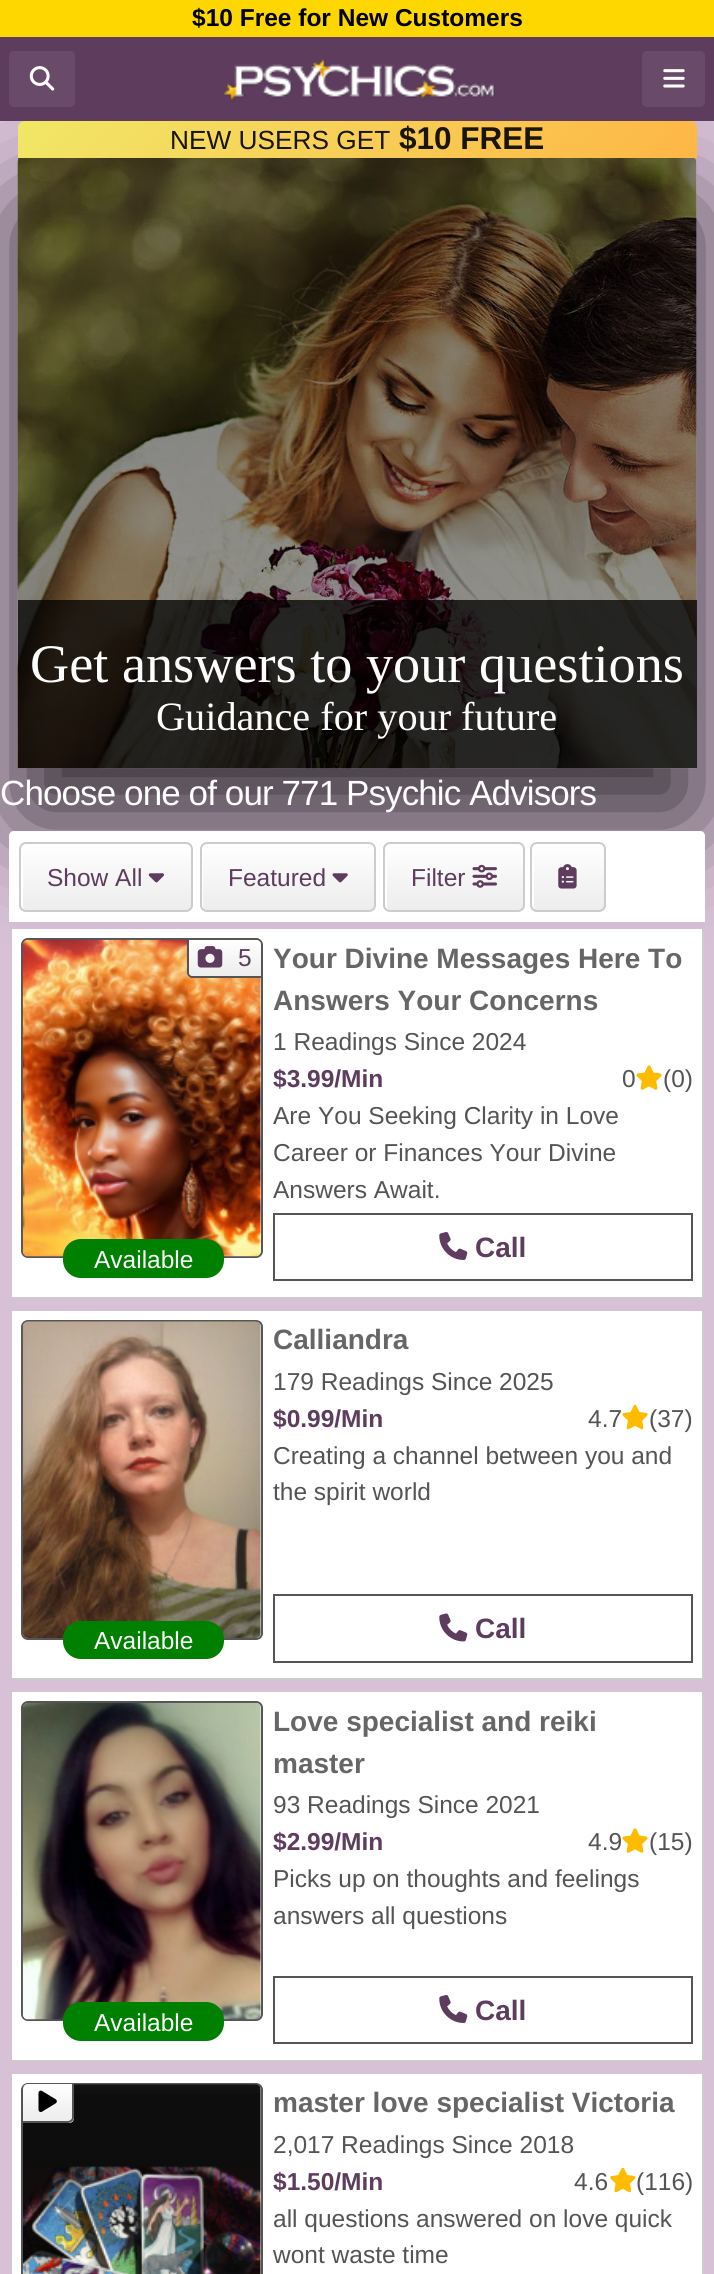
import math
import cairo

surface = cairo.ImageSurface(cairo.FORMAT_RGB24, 714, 2274)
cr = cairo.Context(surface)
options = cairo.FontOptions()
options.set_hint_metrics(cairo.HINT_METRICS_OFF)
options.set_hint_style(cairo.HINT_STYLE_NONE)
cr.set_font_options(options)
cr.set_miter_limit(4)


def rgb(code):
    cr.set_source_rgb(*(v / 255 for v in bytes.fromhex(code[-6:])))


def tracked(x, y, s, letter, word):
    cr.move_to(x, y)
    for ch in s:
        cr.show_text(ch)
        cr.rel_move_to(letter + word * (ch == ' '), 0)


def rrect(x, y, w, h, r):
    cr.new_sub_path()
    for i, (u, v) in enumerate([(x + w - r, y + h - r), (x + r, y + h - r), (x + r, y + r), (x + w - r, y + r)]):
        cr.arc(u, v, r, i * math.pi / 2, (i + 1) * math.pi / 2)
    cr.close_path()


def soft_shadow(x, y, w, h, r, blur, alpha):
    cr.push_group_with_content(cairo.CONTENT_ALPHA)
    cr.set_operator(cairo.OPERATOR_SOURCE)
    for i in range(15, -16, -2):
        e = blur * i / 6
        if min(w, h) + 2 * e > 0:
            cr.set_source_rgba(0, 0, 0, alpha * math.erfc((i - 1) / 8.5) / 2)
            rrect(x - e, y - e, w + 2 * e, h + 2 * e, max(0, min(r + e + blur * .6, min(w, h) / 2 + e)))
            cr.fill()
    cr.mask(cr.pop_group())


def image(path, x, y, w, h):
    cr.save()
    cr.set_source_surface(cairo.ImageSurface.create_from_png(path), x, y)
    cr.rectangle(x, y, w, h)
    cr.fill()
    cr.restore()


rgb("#d7c1d7")
cr.paint()
gradient = cairo.LinearGradient(18, 462, 697, 462)
gradient.add_color_stop_rgba(0, 0.424, 0.376, 0.424, 1)
gradient.add_color_stop_rgba(1, 0.847, 0.753, 0.847, 1)
cr.set_source(gradient)
cr.rectangle(18, 158, 668, 610)
cr.fill()
rgb("#000000")
soft_shadow(18, 208, 679, 613, 7, 52.5, 0.75)
rgb("#5d3c5d")
cr.rectangle(0, 37, 714, 84)
cr.fill()
rgb("#ffd700")
cr.rectangle(0, 0, 714, 37)
cr.fill()
rgb("#694b69")
rrect(9, 51, 66, 56, 5)
cr.fill()
image("img/1.png", 29, 66, 26, 25)
image("img/2.png", 222, 59, 273, 43)
rrect(642, 51, 63, 56, 5)
cr.fill()
image("img/3.png", 663, 69, 22, 19)
gradient = cairo.LinearGradient(178, -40, 536, 318)
gradient.add_color_stop_rgba(0, 0.945, 0.906, 0.404, 1)
gradient.add_color_stop_rgba(1, 0.996, 0.714, 0.271, 1)
cr.set_source(gradient)
cr.new_path()
cr.move_to(25, 121)
cr.line_to(690, 121)
cr.curve_to(694, 121, 697, 124, 697, 128)
cr.line_to(697, 158)
cr.line_to(18, 158)
cr.line_to(18, 128)
cr.curve_to(18, 124, 21, 121, 25, 121)
cr.close_path()
cr.fill()
image("img/4.png", 17, 158, 680, 611)
cr.set_source_rgba(0, 0, 0, 0.75)
cr.rectangle(18, 600, 679, 168)
cr.fill()
rgb("#ffffff")
cr.new_path()
cr.move_to(14, 831)
cr.line_to(700, 831)
cr.curve_to(703, 831, 705, 833, 705, 836)
cr.line_to(705, 922)
cr.line_to(9, 922)
cr.line_to(9, 836)
cr.curve_to(9, 833, 11, 831, 14, 831)
cr.close_path()
cr.fill()
cr.save()
rrect(19, 842, 174, 70, 7)
cr.clip()
gradient = cairo.LinearGradient(106, 844, 106, 910)
gradient.add_color_stop_rgba(0, 1, 1, 1, 1)
gradient.add_color_stop_rgba(0.47, 0.965, 0.965, 0.965, 1)
gradient.add_color_stop_rgba(1, 0.929, 0.929, 0.929, 1)
cr.set_source(gradient)
cr.rectangle(19, 844, 174, 66)
cr.fill()
cr.restore()
cr.new_path()
cr.move_to(28, 845)
cr.line_to(187, 845)
cr.line_to(190, 846)
cr.curve_to(189, 845, 188, 844, 186, 844)
cr.line_to(26, 844)
cr.curve_to(23, 844, 21, 846, 21, 849)
cr.line_to(21, 905)
cr.curve_to(21, 907, 22, 909, 24, 910)
cr.line_to(23, 906)
cr.line_to(23, 850)
cr.curve_to(23, 848, 25, 845, 28, 845)
cr.close_path()
cr.fill()
rrect(20, 843, 172, 68, 6)
rgb("#cccccc")
cr.stroke()
image("img/5.png", 148, 873, 16, 10)
cr.save()
rrect(200, 842, 176, 70, 7)
cr.clip()
gradient = cairo.LinearGradient(288, 844, 288, 910)
gradient.add_color_stop_rgba(0, 1, 1, 1, 1)
gradient.add_color_stop_rgba(0.47, 0.965, 0.965, 0.965, 1)
gradient.add_color_stop_rgba(1, 0.929, 0.929, 0.929, 1)
cr.set_source(gradient)
cr.rectangle(200, 844, 176, 66)
cr.fill()
cr.restore()
rgb("#ffffff")
cr.new_path()
cr.move_to(208, 845)
cr.line_to(371, 845)
cr.line_to(374, 846)
cr.curve_to(373, 845, 372, 844, 370, 844)
cr.line_to(206, 844)
cr.curve_to(203, 844, 201, 846, 201, 849)
cr.line_to(201, 905)
cr.curve_to(201, 907, 202, 909, 204, 910)
cr.line_to(203, 906)
cr.line_to(203, 850)
cr.curve_to(203, 848, 205, 845, 208, 845)
cr.close_path()
cr.fill()
rrect(201, 843, 174, 68, 6)
rgb("#cccccc")
cr.stroke()
image("img/6.png", 332, 873, 16, 10)
cr.save()
rrect(383, 842, 142, 70, 7)
cr.clip()
gradient = cairo.LinearGradient(454, 844, 454, 910)
gradient.add_color_stop_rgba(0, 1, 1, 1, 1)
gradient.add_color_stop_rgba(0.47, 0.965, 0.965, 0.965, 1)
gradient.add_color_stop_rgba(1, 0.929, 0.929, 0.929, 1)
cr.set_source(gradient)
cr.rectangle(383, 844, 142, 66)
cr.fill()
cr.restore()
rgb("#ffffff")
cr.new_path()
cr.move_to(392, 845)
cr.line_to(521, 845)
cr.curve_to(520, 844, 519, 844, 518, 844)
cr.line_to(390, 844)
cr.curve_to(387, 844, 385, 846, 385, 849)
cr.line_to(385, 905)
cr.curve_to(385, 907, 386, 909, 388, 910)
cr.line_to(387, 906)
cr.line_to(387, 850)
cr.curve_to(387, 848, 389, 845, 392, 845)
cr.close_path()
cr.fill()
rrect(384, 843, 140, 68, 6)
rgb("#cccccc")
cr.stroke()
image("img/7.png", 472, 864, 25, 24)
cr.save()
rrect(530, 842, 76, 70, 7)
cr.clip()
gradient = cairo.LinearGradient(568, 844, 568, 910)
gradient.add_color_stop_rgba(0, 1, 1, 1, 1)
gradient.add_color_stop_rgba(0.47, 0.965, 0.965, 0.965, 1)
gradient.add_color_stop_rgba(1, 0.929, 0.929, 0.929, 1)
cr.set_source(gradient)
cr.rectangle(530, 844, 76, 66)
cr.fill()
cr.restore()
rgb("#ffffff")
cr.new_path()
cr.move_to(539, 845)
cr.line_to(600, 845)
cr.line_to(603, 846)
cr.curve_to(602, 845, 601, 844, 599, 844)
cr.line_to(537, 844)
cr.curve_to(534, 844, 532, 846, 532, 849)
cr.line_to(532, 905)
cr.curve_to(532, 907, 533, 909, 535, 910)
cr.line_to(534, 906)
cr.line_to(534, 850)
cr.curve_to(534, 848, 536, 845, 539, 845)
cr.close_path()
cr.fill()
rrect(531, 843, 74, 68, 6)
rgb("#cccccc")
cr.stroke()
image("img/8.png", 558, 864, 19, 25)
cr.new_path()
cr.move_to(14, 1297)
cr.line_to(14, 1299)
cr.line_to(704, 1299)
cr.line_to(704, 931)
cr.line_to(702, 931)
cr.line_to(702, 1297)
cr.close_path()
cr.fill()
rgb("#ffffff")
cr.rectangle(12, 929, 690, 368)
cr.fill()
rrect(22, 939, 240, 318, 6)
rgb("#555555")
cr.stroke()
image("img/9.png", 22, 939, 239, 318)
cr.save()
cr.new_path()
cr.move_to(187, 940)
cr.line_to(256, 940)
cr.curve_to(259, 940, 261, 942, 261, 945)
cr.line_to(261, 978)
cr.line_to(192, 978)
cr.curve_to(189, 978, 187, 976, 187, 973)
cr.close_path()
cr.clip()
gradient = cairo.LinearGradient(225, 940, 225, 977)
gradient.add_color_stop_rgba(0, 1, 1, 1, 1)
gradient.add_color_stop_rgba(0.47, 0.965, 0.965, 0.965, 1)
gradient.add_color_stop_rgba(1, 0.929, 0.929, 0.929, 1)
cr.set_source(gradient)
cr.new_path()
cr.move_to(187, 940)
cr.line_to(256, 940)
cr.curve_to(259, 940, 261, 942, 261, 945)
cr.line_to(261, 977)
cr.line_to(187, 977)
cr.close_path()
cr.fill()
cr.restore()
cr.set_fill_rule(cairo.FILL_RULE_EVEN_ODD)
cr.new_path()
cr.move_to(187, 940)
cr.line_to(256, 940)
cr.curve_to(258, 940, 261, 942, 261, 945)
cr.line_to(261, 978)
cr.line_to(192, 978)
cr.curve_to(190, 978, 187, 976, 187, 973)
cr.close_path()
cr.move_to(189, 940)
cr.line_to(256, 940)
cr.curve_to(258, 940, 261, 942, 261, 945)
cr.line_to(261, 976)
cr.line_to(192, 976)
cr.curve_to(191, 976, 189, 975, 189, 973)
cr.close_path()
cr.fill()
image("img/10.png", 197, 946, 26, 22)
rgb("#008000")
rrect(63, 1239, 161, 39, 18)
cr.fill()
image("img/11.png", 636, 1065, 26, 25)
cr.rectangle(274, 1214, 418, 66)
rgb("#555555")
cr.stroke()
image("img/12.png", 439, 1232, 29, 28)
rgb("#cccccc")
cr.set_fill_rule(cairo.FILL_RULE_WINDING)
cr.new_path()
cr.move_to(14, 1678)
cr.line_to(14, 1680)
cr.line_to(704, 1680)
cr.line_to(704, 1313)
cr.line_to(702, 1313)
cr.line_to(702, 1678)
cr.close_path()
cr.fill()
rgb("#ffffff")
cr.rectangle(12, 1311, 690, 367)
cr.fill()
rrect(22, 1321, 240, 318, 6)
rgb("#555555")
cr.stroke()
image("img/13.png", 22, 1321, 239, 317)
rgb("#008000")
rrect(63, 1621, 161, 38, 18)
cr.fill()
image("img/14.png", 622, 1404, 26, 26)
cr.rectangle(274, 1595, 418, 67)
rgb("#555555")
cr.stroke()
image("img/15.png", 439, 1613, 29, 29)
rgb("#cccccc")
cr.new_path()
cr.move_to(14, 2060)
cr.line_to(14, 2062)
cr.line_to(704, 2062)
cr.line_to(704, 1694)
cr.line_to(702, 1694)
cr.line_to(702, 2060)
cr.close_path()
cr.fill()
rgb("#ffffff")
cr.rectangle(12, 1692, 690, 368)
cr.fill()
rrect(22, 1702, 240, 318, 6)
rgb("#555555")
cr.stroke()
image("img/16.png", 22, 1702, 239, 318)
rgb("#008000")
rrect(63, 2002, 161, 39, 18)
cr.fill()
image("img/11.png", 622, 1828, 26, 25)
cr.rectangle(274, 1977, 418, 66)
rgb("#555555")
cr.stroke()
image("img/12.png", 439, 1995, 29, 28)
rgb("#cccccc")
cr.new_path()
cr.move_to(14, 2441)
cr.line_to(14, 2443)
cr.line_to(704, 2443)
cr.line_to(704, 2076)
cr.line_to(702, 2076)
cr.line_to(702, 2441)
cr.close_path()
cr.fill()
rgb("#ffffff")
cr.rectangle(12, 2074, 690, 200)
cr.fill()
rrect(22, 2084, 240, 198, 6)
rgb("#555555")
cr.stroke()
image("img/17.png", 22, 2084, 239, 190)
cr.save()
cr.new_path()
cr.move_to(28, 2084)
cr.line_to(74, 2084)
cr.line_to(74, 2118)
cr.curve_to(74, 2121, 72, 2123, 69, 2123)
cr.line_to(23, 2123)
cr.line_to(23, 2089)
cr.curve_to(23, 2086, 25, 2084, 28, 2084)
cr.close_path()
cr.clip()
gradient = cairo.LinearGradient(47, 2084, 47, 2121)
gradient.add_color_stop_rgba(0, 1, 1, 1, 1)
gradient.add_color_stop_rgba(0.47, 0.965, 0.965, 0.965, 1)
gradient.add_color_stop_rgba(1, 0.929, 0.929, 0.929, 1)
cr.set_source(gradient)
cr.new_path()
cr.move_to(28, 2084)
cr.line_to(74, 2084)
cr.line_to(74, 2121)
cr.line_to(23, 2121)
cr.line_to(23, 2089)
cr.curve_to(23, 2086, 25, 2084, 28, 2084)
cr.close_path()
cr.fill()
gradient = cairo.LinearGradient(47, 2121, 47, 2158)
gradient.add_color_stop_rgba(0, 1, 1, 1, 1)
gradient.add_color_stop_rgba(0.47, 0.965, 0.965, 0.965, 1)
gradient.add_color_stop_rgba(1, 0.929, 0.929, 0.929, 1)
cr.set_source(gradient)
cr.rectangle(68, 2121, 6, 2)
cr.fill()
cr.restore()
cr.set_fill_rule(cairo.FILL_RULE_EVEN_ODD)
cr.new_path()
cr.move_to(28, 2084)
cr.line_to(74, 2084)
cr.line_to(74, 2118)
cr.curve_to(74, 2120, 71, 2123, 68, 2123)
cr.line_to(23, 2123)
cr.line_to(23, 2090)
cr.curve_to(23, 2087, 25, 2084, 28, 2084)
cr.close_path()
cr.move_to(28, 2084)
cr.line_to(72, 2084)
cr.line_to(72, 2118)
cr.curve_to(72, 2119, 70, 2121, 68, 2121)
cr.line_to(23, 2121)
cr.line_to(23, 2090)
cr.curve_to(23, 2087, 25, 2084, 28, 2084)
cr.close_path()
cr.fill()
image("img/18.png", 38, 2090, 19, 22)
image("img/19.png", 610, 2167, 26, 26)
cr.select_font_face("Liberation Sans", cairo.FONT_SLANT_NORMAL, cairo.FONT_WEIGHT_BOLD)
cr.set_font_size(24.5)
rgb("#000000")
cr.move_to(192, 26)
cr.show_text("$10 Free for New Customers")
cr.select_font_face("Liberation Sans")
cr.set_font_size(26.25)
rgb("#191509")
cr.move_to(170, 149)
cr.show_text("NEW USERS GET")
cr.select_font_face("Liberation Sans", cairo.FONT_SLANT_NORMAL, cairo.FONT_WEIGHT_BOLD)
cr.set_font_size(31.5)
cr.move_to(399, 149)
cr.show_text("$10 FREE")
cr.select_font_face("Liberation Serif")
cr.set_font_size(54.25)
rgb("#ffffff")
cr.move_to(30, 682)
cr.show_text("Get answers to your questions")
cr.set_font_size(40.25)
cr.move_to(156, 730)
cr.show_text("Guidance for your future")
cr.select_font_face("Liberation Sans")
cr.set_font_size(35)
tracked(0, 805, "Choose one of our 771 Psychic Advisors", -0.9, 0)
cr.set_font_size(24.5)
rgb("#5d3c5d")
for x, y, s in [
    (47, 886, "Show All"),
    (228, 886, "Featured"),
    (411, 886, "Filter"),
    (238, 966, "5"),
]:
    cr.move_to(x, y)
    cr.show_text(s)
rgb("#ffffff")
cr.move_to(94, 1268)
cr.show_text("Available")
cr.select_font_face("Liberation Sans", cairo.FONT_SLANT_NORMAL, cairo.FONT_WEIGHT_BOLD)
cr.set_font_size(28)
rgb("#666666")
cr.move_to(273, 968)
cr.show_text("Your Divine Messages Here To")
cr.move_to(273, 1010)
cr.show_text("Answers Your Concerns")
cr.select_font_face("Liberation Sans")
cr.set_font_size(24.5)
rgb("#545454")
cr.move_to(273, 1050)
cr.show_text("1 Readings Since 2024")
cr.select_font_face("Liberation Sans", cairo.FONT_SLANT_NORMAL, cairo.FONT_WEIGHT_BOLD)
rgb("#5d3c5d")
cr.move_to(273, 1087)
cr.show_text("$3.99/Min")
cr.select_font_face("Liberation Sans")
rgb("#545454")
for x, y, s in [
    (622, 1087, "0"),
    (663, 1087, "(0)"),
    (273, 1124, "Are You Seeking Clarity in Love"),
    (273, 1161, "Career or Finances Your Divine"),
    (273, 1198, "Answers Await."),
]:
    cr.move_to(x, y)
    cr.show_text(s)
cr.select_font_face("Liberation Sans", cairo.FONT_SLANT_NORMAL, cairo.FONT_WEIGHT_BOLD)
cr.set_font_size(28)
rgb("#5d3c5d")
cr.move_to(475, 1257)
cr.show_text("Call")
cr.select_font_face("Liberation Sans")
cr.set_font_size(24.5)
rgb("#ffffff")
cr.move_to(94, 1649)
cr.show_text("Available")
cr.select_font_face("Liberation Sans", cairo.FONT_SLANT_NORMAL, cairo.FONT_WEIGHT_BOLD)
cr.set_font_size(28)
rgb("#666666")
cr.move_to(273, 1349)
cr.show_text("Calliandra")
cr.select_font_face("Liberation Sans")
cr.set_font_size(24.5)
rgb("#545454")
cr.move_to(273, 1390)
cr.show_text("179 Readings Since 2025")
cr.select_font_face("Liberation Sans", cairo.FONT_SLANT_NORMAL, cairo.FONT_WEIGHT_BOLD)
rgb("#5d3c5d")
cr.move_to(273, 1427)
cr.show_text("$0.99/Min")
cr.select_font_face("Liberation Sans")
rgb("#545454")
for x, y, s in [
    (588, 1427, "4.7"),
    (649, 1427, "(37)"),
    (273, 1464, "Creating a channel between you and"),
    (273, 1500, "the spirit world"),
]:
    cr.move_to(x, y)
    cr.show_text(s)
cr.select_font_face("Liberation Sans", cairo.FONT_SLANT_NORMAL, cairo.FONT_WEIGHT_BOLD)
cr.set_font_size(28)
rgb("#5d3c5d")
cr.move_to(475, 1638)
cr.show_text("Call")
cr.select_font_face("Liberation Sans")
cr.set_font_size(24.5)
rgb("#ffffff")
cr.move_to(94, 2031)
cr.show_text("Available")
cr.select_font_face("Liberation Sans", cairo.FONT_SLANT_NORMAL, cairo.FONT_WEIGHT_BOLD)
cr.set_font_size(28)
rgb("#666666")
cr.move_to(273, 1731)
cr.show_text("Love specialist and reiki")
cr.move_to(273, 1773)
cr.show_text("master")
cr.select_font_face("Liberation Sans")
cr.set_font_size(24.5)
rgb("#545454")
cr.move_to(273, 1813)
cr.show_text("93 Readings Since 2021")
cr.select_font_face("Liberation Sans", cairo.FONT_SLANT_NORMAL, cairo.FONT_WEIGHT_BOLD)
rgb("#5d3c5d")
cr.move_to(273, 1850)
cr.show_text("$2.99/Min")
cr.select_font_face("Liberation Sans")
rgb("#545454")
for x, y, s in [
    (588, 1850, "4.9"),
    (649, 1850, "(15)"),
    (273, 1887, "Picks up on thoughts and feelings"),
    (273, 1924, "answers all questions"),
]:
    cr.move_to(x, y)
    cr.show_text(s)
cr.select_font_face("Liberation Sans", cairo.FONT_SLANT_NORMAL, cairo.FONT_WEIGHT_BOLD)
cr.set_font_size(28)
rgb("#5d3c5d")
cr.move_to(475, 2020)
cr.show_text("Call")
rgb("#666666")
cr.move_to(273, 2112)
cr.show_text("master love specialist Victoria")
cr.select_font_face("Liberation Sans")
cr.set_font_size(24.5)
rgb("#545454")
cr.move_to(273, 2153)
cr.show_text("2,017 Readings Since 2018")
cr.select_font_face("Liberation Sans", cairo.FONT_SLANT_NORMAL, cairo.FONT_WEIGHT_BOLD)
rgb("#5d3c5d")
cr.move_to(273, 2190)
cr.show_text("$1.50/Min")
cr.select_font_face("Liberation Sans")
rgb("#545454")
for x, y, s in [
    (574, 2190, "4.6"),
    (636, 2190, "(116)"),
    (273, 2227, "all questions answered on love quick"),
    (273, 2263, "wont waste time"),
]:
    cr.move_to(x, y)
    cr.show_text(s)
surface.write_to_png("page.png")
